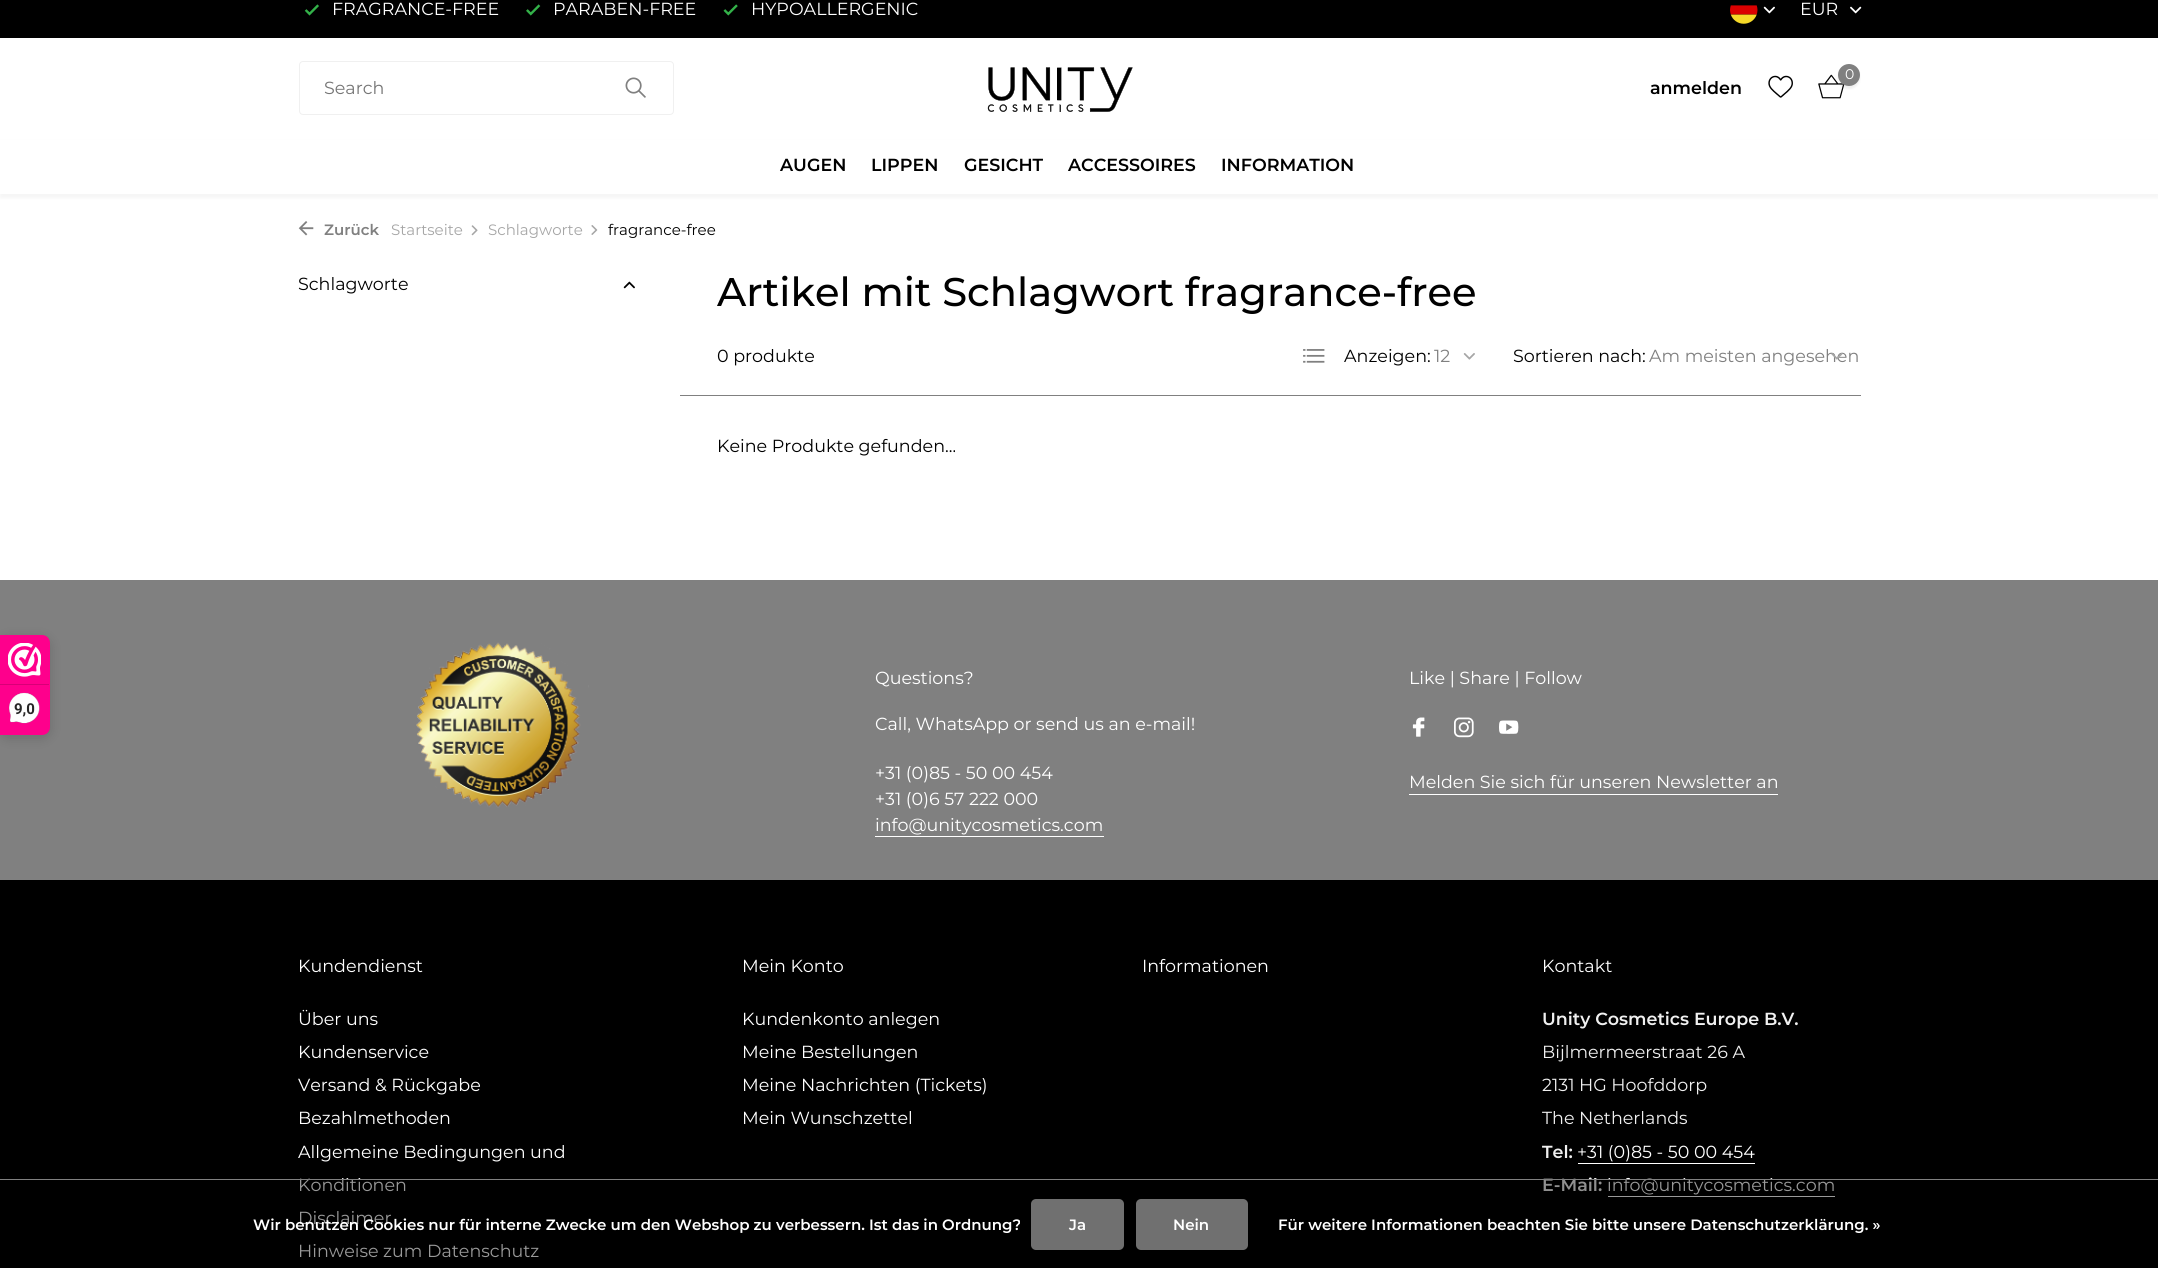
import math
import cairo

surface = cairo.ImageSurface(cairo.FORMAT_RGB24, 2158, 1268)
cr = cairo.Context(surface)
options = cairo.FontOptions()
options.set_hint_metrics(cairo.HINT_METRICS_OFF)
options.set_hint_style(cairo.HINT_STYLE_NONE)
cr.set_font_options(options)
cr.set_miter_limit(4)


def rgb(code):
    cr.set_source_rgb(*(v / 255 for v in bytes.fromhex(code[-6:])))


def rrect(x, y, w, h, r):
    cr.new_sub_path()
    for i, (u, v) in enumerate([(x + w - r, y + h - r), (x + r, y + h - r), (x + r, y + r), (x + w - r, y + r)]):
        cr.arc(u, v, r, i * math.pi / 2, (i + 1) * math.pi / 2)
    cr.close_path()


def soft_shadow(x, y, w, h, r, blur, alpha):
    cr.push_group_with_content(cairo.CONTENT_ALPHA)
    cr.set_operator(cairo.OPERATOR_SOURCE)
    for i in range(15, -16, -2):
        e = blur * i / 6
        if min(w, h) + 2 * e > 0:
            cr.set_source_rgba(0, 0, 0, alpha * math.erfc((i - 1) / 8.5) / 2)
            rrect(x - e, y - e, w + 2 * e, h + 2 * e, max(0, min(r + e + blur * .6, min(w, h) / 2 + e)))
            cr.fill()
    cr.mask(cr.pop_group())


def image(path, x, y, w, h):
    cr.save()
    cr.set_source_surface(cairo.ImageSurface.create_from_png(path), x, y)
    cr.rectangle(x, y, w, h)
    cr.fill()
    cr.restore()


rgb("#ffffff")
cr.paint()
rgb("#000000")
cr.rectangle(0, 0, 2158, 38)
cr.fill()
image("img/1.png", 304, 4, 15, 12)
image("img/2.png", 526, 4, 15, 12)
image("img/3.png", 723, 4, 15, 12)
image("img/4.png", 1730, 5, 28, 19)
image("img/5.png", 1763, 6, 12, 8)
image("img/6.png", 1850, 6, 12, 8)
rrect(299.5, 61.5, 374, 53, 3.5)
rgb("#f0f0f0")
cr.set_line_width(1)
cr.stroke()
image("img/7.png", 625, 77, 21, 21)
image("img/8.png", 987, 67, 146, 45)
image("img/9.png", 1768, 75, 25, 23)
image("img/10.png", 1818, 74, 27, 25)
rgb("#000000")
soft_shadow(1838, 66, 22, 23, 11, 1, 0.06)
rgb("#808080")
cr.arc(1849, 75, 11, 0, 2 * math.pi)
cr.fill()
rgb("#000000")
soft_shadow(0, 141, 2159, 57, 0, 2, 0.04)
rgb("#ffffff")
cr.rectangle(0, 140, 2158, 54)
cr.fill()
image("img/11.png", 298, 221, 16, 15)
image("img/12.png", 471, 225, 7, 11)
image("img/13.png", 591, 225, 7, 10)
image("img/14.png", 623, 281, 12, 8)
image("img/15.png", 1303, 349, 22, 14)
image("img/16.png", 1463, 353, 12, 7)
rgb("#808080")
cr.rectangle(680, 395, 1181, 1)
cr.fill()
cr.rectangle(0, 580, 2158, 300)
cr.fill()
rgb("#000000")
soft_shadow(0, 638, 50, 100, 8, 6, 0.15)
rgb("#fe008c")
cr.new_path()
cr.move_to(0, 635)
cr.line_to(42, 635)
cr.curve_to(46.5, 635, 50, 638.5, 50, 643)
cr.line_to(50, 727)
cr.curve_to(50, 731.5, 46.5, 735, 42, 735)
cr.line_to(0, 735)
cr.close_path()
cr.fill()
image("img/18.png", 8, 643, 33, 34)
rgb("#d80077")
cr.rectangle(0, 684, 49, 1)
cr.fill()
image("img/19.png", 9, 692, 31, 32)
image("img/20.png", 416, 642, 173, 166)
rgb("#ffffff")
cr.rectangle(875, 836, 229, 1)
cr.fill()
image("img/21.png", 1412, 717, 13, 20)
image("img/22.png", 1454, 717, 20, 21)
image("img/23.png", 1499, 720, 20, 14)
for x, y, w, h, color in [
    (1409, 794, 369, 1, "#ffffff"),
    (0, 880, 2158, 388, "#000000"),
    (1578, 1163, 177, 1, "#ffffff"),
    (1608, 1196, 227, 1, "#ffffff"),
]:
    rgb(color)
    cr.rectangle(x, y, w, h)
    cr.fill()
cr.select_font_face("Montserrat")
cr.set_font_size(17.5)
for x, y, s in [
    (332, 15, "FRAGRANCE-FREE"),
    (553, 15, "PARABEN-FREE"),
    (751, 15, "HYPOALLERGENIC"),
    (1800, 15, "EUR"),
]:
    cr.move_to(x, y)
    cr.show_text(s)
rgb("#757575")
cr.move_to(324, 94)
cr.show_text("Search")
cr.select_font_face("Montserrat SemiBold")
rgb("#000000")
cr.move_to(1650, 94)
cr.show_text("anmelden")
cr.select_font_face("Montserrat")
cr.set_font_size(14)
rgb("#ffffff")
cr.move_to(1845, 79)
cr.show_text("0")
cr.select_font_face("Montserrat SemiBold")
cr.set_font_size(17.5)
rgb("#000000")
for x, y, s in [
    (780, 171, "AUGEN"),
    (871, 171, "LIPPEN"),
    (964, 171, "GESICHT"),
    (1068, 171, "ACCESSOIRES"),
    (1221, 171, "INFORMATION"),
]:
    cr.move_to(x, y)
    cr.show_text(s)
cr.set_font_size(15)
rgb("#808080")
cr.move_to(324, 235)
cr.show_text("Zurück")
cr.select_font_face("Montserrat")
rgb("#a6a6a6")
cr.move_to(391, 235)
cr.show_text("Startseite")
cr.move_to(488, 235)
cr.show_text("Schlagworte")
rgb("#000000")
cr.move_to(608, 235)
cr.show_text("fragrance-free")
cr.set_font_size(17.5)
cr.move_to(298, 290)
cr.show_text("Schlagworte")
cr.select_font_face("Montserrat Medium")
cr.set_font_size(40)
cr.move_to(717, 306)
cr.show_text("Artikel mit Schlagwort fragrance-free")
cr.select_font_face("Montserrat")
cr.set_font_size(17.5)
cr.move_to(717, 362)
cr.show_text("0 produkte")
cr.move_to(1344, 362)
cr.show_text("Anzeigen:")
rgb("#808080")
cr.move_to(1434, 362)
cr.show_text("12")
rgb("#000000")
cr.move_to(1513, 362)
cr.show_text("Sortieren nach:")
rgb("#808080")
cr.move_to(1649, 362)
cr.show_text("Am meisten angesehen")
image("img/17.png", 1831, 353, 12, 7)
rgb("#000000")
cr.move_to(717, 452)
cr.show_text("Keine Produkte gefunden...")
cr.select_font_face("Roboto", cairo.FONT_SLANT_NORMAL, cairo.FONT_WEIGHT_BOLD)
cr.set_font_size(15)
rgb("#272626")
cr.move_to(14, 714)
cr.show_text("9,0")
cr.select_font_face("Montserrat")
cr.set_font_size(17.5)
rgb("#ffffff")
for x, y, s in [
    (875, 684, "Questions?"),
    (875, 730, "Call, WhatsApp or send us an e-mail!"),
    (875, 779, "+31 (0)85 - 50 00 454"),
    (875, 805, "+31 (0)6 57 222 000"),
    (875, 831, "info@unitycosmetics.com"),
    (1409, 684, "Like | Share | Follow"),
    (1409, 788, "Melden Sie sich für unseren Newsletter an"),
    (298, 972, "Kundendienst"),
    (298, 1025, "Über uns"),
    (298, 1058, "Kundenservice"),
    (298, 1091, "Versand & Rückgabe"),
    (298, 1124, "Bezahlmethoden"),
    (298, 1158, "Allgemeine Bedingungen und"),
    (298, 1191, "Konditionen"),
    (298, 1224, "Disclaimer"),
    (298, 1257, "Hinweise zum Datenschutz"),
    (742, 972, "Mein Konto"),
    (742, 1025, "Kundenkonto anlegen"),
    (742, 1058, "Meine Bestellungen"),
    (742, 1091, "Meine Nachrichten (Tickets)"),
    (742, 1124, "Mein Wunschzettel"),
    (1142, 972, "Informationen"),
    (1542, 972, "Kontakt"),
]:
    cr.move_to(x, y)
    cr.show_text(s)
cr.select_font_face("Montserrat SemiBold")
rgb("#f0f0f0")
cr.move_to(1542, 1025)
cr.show_text("Unity Cosmetics Europe B.V.")
cr.select_font_face("Montserrat")
for x, y, s in [
    (1542, 1058, "Bijlmermeerstraat 26 A"),
    (1542, 1091, "2131 HG Hoofddorp"),
    (1542, 1124, "The Netherlands"),
]:
    cr.move_to(x, y)
    cr.show_text(s)
cr.select_font_face("Montserrat SemiBold")
cr.move_to(1542, 1158)
cr.show_text("Tel:")
cr.select_font_face("Montserrat")
rgb("#ffffff")
cr.move_to(1577, 1158)
cr.show_text("+31 (0)85 - 50 00 454")
cr.select_font_face("Montserrat SemiBold")
rgb("#f0f0f0")
cr.move_to(1542, 1191)
cr.show_text("E-Mail:")
cr.select_font_face("Montserrat")
rgb("#ffffff")
cr.move_to(1607, 1191)
cr.show_text("info@unitycosmetics.com")
cr.set_source_rgba(0, 0, 0, 0.4)
cr.rectangle(300, 1180, 1535, 78)
cr.fill()
rgb("#808080")
cr.rectangle(0, 1179, 2158, 1)
cr.fill()
cr.select_font_face("Montserrat SemiBold")
cr.set_font_size(15)
rgb("#ffffff")
cr.move_to(253, 1230)
cr.show_text("Wir benutzen Cookies nur für interne Zwecke um den Webshop zu verbessern. Ist das in Ordnung?")
rgb("#707070")
rrect(1031, 1199, 93, 51, 5)
cr.fill()
rgb("#ffffff")
cr.move_to(1069, 1230)
cr.show_text("Ja")
rgb("#707070")
rrect(1136, 1199, 112, 51, 5)
cr.fill()
rgb("#ffffff")
cr.move_to(1173, 1230)
cr.show_text("Nein")
cr.move_to(1278, 1230)
cr.show_text("Für weitere Informationen beachten Sie bitte unsere Datenschutzerklärung. »")
surface.write_to_png("page.png")
